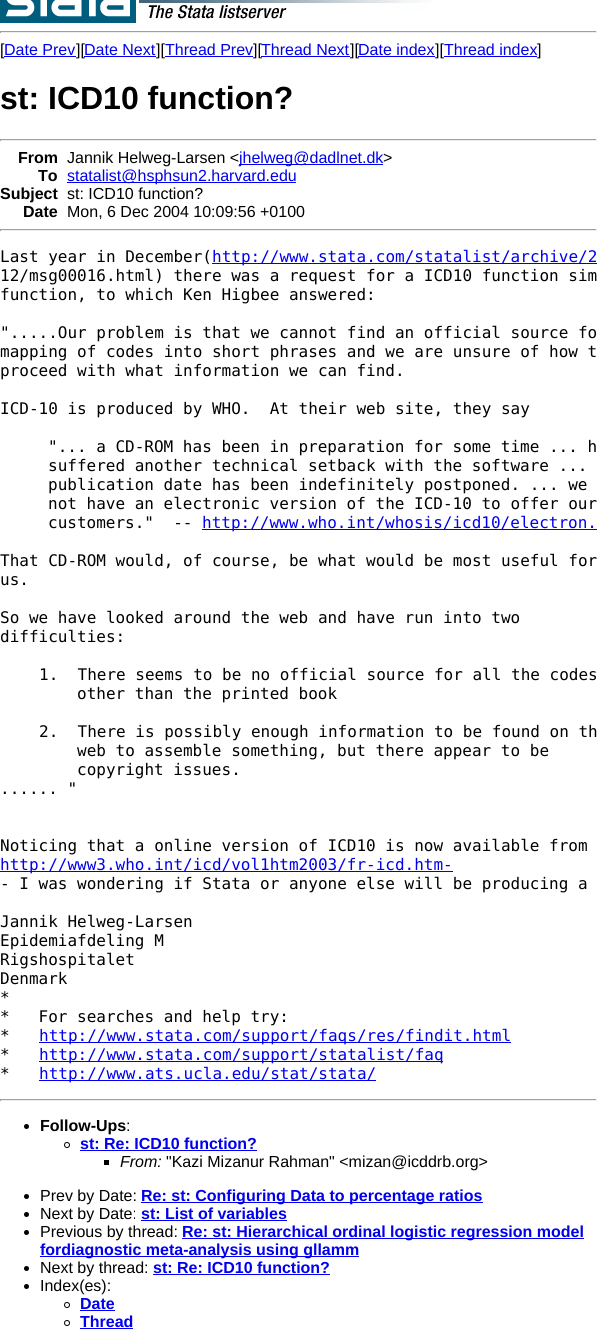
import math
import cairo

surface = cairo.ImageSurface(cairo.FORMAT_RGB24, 597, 1343)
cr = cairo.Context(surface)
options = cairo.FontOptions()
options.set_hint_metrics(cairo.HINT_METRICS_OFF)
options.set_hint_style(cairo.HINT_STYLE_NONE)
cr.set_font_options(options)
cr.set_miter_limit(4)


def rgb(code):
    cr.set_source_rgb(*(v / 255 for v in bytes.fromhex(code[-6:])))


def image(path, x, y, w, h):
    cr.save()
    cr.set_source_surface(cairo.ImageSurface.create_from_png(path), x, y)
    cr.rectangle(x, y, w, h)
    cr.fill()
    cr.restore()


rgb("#ffffff")
cr.paint()
image("img/1.png", 0, 0, 136, 23)
image("img/2.png", 139, 0, 292, 20)
for x, y, w, h, color in [
    (0, 31, 597, 1, "#9f9f9f"),
    (596, 31, 1, 2, "#eeeeee"),
    (0, 32, 597, 1, "#eeeeee"),
    (0, 31, 1, 2, "#9f9f9f"),
    (165, 56, 88, 1, "#0000ee"),
    (444, 56, 93, 1, "#0000ee"),
    (0, 139, 597, 1, "#9f9f9f"),
    (596, 139, 1, 2, "#eeeeee"),
    (0, 140, 597, 1, "#eeeeee"),
    (0, 139, 1, 2, "#9f9f9f"),
    (239, 164, 144, 1, "#0000ee"),
    (67, 182, 229, 1, "#0000ee"),
    (0, 229, 597, 1, "#9f9f9f"),
    (596, 229, 1, 2, "#eeeeee"),
    (0, 230, 597, 1, "#eeeeee"),
    (0, 229, 1, 2, "#9f9f9f"),
    (212, 263, 385, 1, "#0000ee"),
    (202, 529, 395, 1, "#0000ee"),
    (0, 871, 453, 1, "#0000ee"),
    (39, 1042, 472, 1, "#0000ee"),
    (39, 1061, 404, 1, "#0000ee"),
    (39, 1080, 337, 1, "#0000ee"),
    (0, 1099, 597, 1, "#9f9f9f"),
    (596, 1099, 1, 2, "#eeeeee"),
    (0, 1100, 597, 1, "#eeeeee"),
    (0, 1099, 1, 2, "#9f9f9f"),
]:
    rgb(color)
    cr.rectangle(x, y, w, h)
    cr.fill()
rgb("#000000")
cr.arc(26.5, 1126.5, 2.5, 0, 2 * math.pi)
cr.fill()
cr.arc(67, 1145, 2.5, 0, 2 * math.pi)
cr.set_line_width(1)
cr.stroke()
rgb("#0000ee")
cr.rectangle(80, 1150, 177, 1)
cr.fill()
rgb("#000000")
cr.rectangle(104, 1160, 5, 5)
cr.fill()
cr.arc(26.5, 1196.5, 2.5, 0, 2 * math.pi)
cr.fill()
rgb("#0000ee")
cr.rectangle(141, 1202, 342, 1)
cr.fill()
rgb("#000000")
cr.arc(26.5, 1214.5, 2.5, 0, 2 * math.pi)
cr.fill()
rgb("#0000ee")
cr.rectangle(141, 1220, 146, 1)
cr.fill()
rgb("#000000")
cr.arc(26.5, 1232.5, 2.5, 0, 2 * math.pi)
cr.fill()
rgb("#0000ee")
cr.rectangle(182, 1238, 402, 1)
cr.fill()
cr.rectangle(40, 1256, 319, 1)
cr.fill()
rgb("#000000")
cr.arc(26.5, 1268.5, 2.5, 0, 2 * math.pi)
cr.fill()
rgb("#0000ee")
cr.rectangle(153, 1274, 177, 1)
cr.fill()
rgb("#000000")
cr.arc(26.5, 1286.5, 2.5, 0, 2 * math.pi)
cr.fill()
cr.arc(67, 1305, 2.5, 0, 2 * math.pi)
cr.stroke()
rgb("#0000ee")
cr.rectangle(80, 1310, 35, 1)
cr.fill()
cr.arc(67, 1323, 2.5, 0, 2 * math.pi)
rgb("#000000")
cr.stroke()
rgb("#0000ee")
cr.rectangle(80, 1328, 53, 1)
cr.fill()
cr.select_font_face("Liberation Sans")
cr.set_font_size(16)
rgb("#000000")
cr.move_to(0, 55)
cr.show_text("[")
rgb("#0000ee")
cr.move_to(4, 55)
cr.show_text("Date Prev")
cr.rectangle(4, 56, 72, 1)
cr.fill()
rgb("#000000")
cr.move_to(76, 55)
cr.show_text("][")
rgb("#0000ee")
cr.move_to(84, 55)
cr.show_text("Date Next")
cr.rectangle(84, 56, 72, 1)
cr.fill()
rgb("#000000")
cr.move_to(156, 55)
cr.show_text("][")
rgb("#0000ee")
cr.move_to(165, 55)
cr.show_text("Thread Prev")
rgb("#000000")
cr.move_to(253, 55)
cr.show_text("][")
rgb("#0000ee")
cr.move_to(261, 55)
cr.show_text("Thread Next")
cr.rectangle(261, 56, 89, 1)
cr.fill()
rgb("#000000")
cr.move_to(350, 55)
cr.show_text("][")
rgb("#0000ee")
cr.move_to(358, 55)
cr.show_text("Date index")
cr.rectangle(358, 56, 77, 1)
cr.fill()
rgb("#000000")
cr.move_to(435, 55)
cr.show_text("][")
rgb("#0000ee")
cr.move_to(444, 55)
cr.show_text("Thread index")
rgb("#000000")
cr.move_to(537, 55)
cr.show_text("]")
cr.select_font_face("Liberation Sans", cairo.FONT_SLANT_NORMAL, cairo.FONT_WEIGHT_BOLD)
cr.set_font_size(32)
cr.move_to(0, 109)
cr.show_text("st: ICD10 function?")
cr.set_font_size(16)
cr.move_to(18, 163)
cr.show_text("From")
cr.select_font_face("Liberation Sans")
cr.move_to(67, 163)
cr.show_text("Jannik Helweg-Larsen <")
rgb("#0000ee")
cr.move_to(239, 163)
cr.show_text("jhelweg@dadlnet.dk")
rgb("#000000")
cr.move_to(383, 163)
cr.show_text(">")
cr.select_font_face("Liberation Sans", cairo.FONT_SLANT_NORMAL, cairo.FONT_WEIGHT_BOLD)
cr.move_to(38, 181)
cr.show_text("To")
cr.select_font_face("Liberation Sans")
rgb("#0000ee")
cr.move_to(67, 181)
cr.show_text("statalist@hsphsun2.harvard.edu")
cr.select_font_face("Liberation Sans", cairo.FONT_SLANT_NORMAL, cairo.FONT_WEIGHT_BOLD)
rgb("#000000")
cr.move_to(0, 199)
cr.show_text("Subject")
cr.select_font_face("Liberation Sans")
cr.move_to(67, 199)
cr.show_text("st: ICD10 function?")
cr.select_font_face("Liberation Sans", cairo.FONT_SLANT_NORMAL, cairo.FONT_WEIGHT_BOLD)
cr.move_to(23, 217)
cr.show_text("Date")
cr.select_font_face("Liberation Sans")
cr.move_to(67, 217)
cr.show_text("Mon, 6 Dec 2004 10:09:56 +0100")
cr.select_font_face("DejaVu Sans Mono")
cr.move_to(0, 262)
cr.show_text("Last year in December(")
rgb("#0000ee")
cr.move_to(212, 262)
cr.show_text("http://www.stata.com/statalist/archive/2")
rgb("#000000")
for x, y, s in [
    (0, 281, "12/msg00016.html) there was a request for a ICD10 function sim"),
    (0, 300, "function, to which Ken Higbee answered:"),
    (0, 338, "\".....Our problem is that we cannot find an official source fo"),
    (0, 357, "mapping of codes into short phrases and we are unsure of how t"),
    (0, 376, "proceed with what information we can find."),
    (0, 414, "ICD-10 is produced by WHO.  At their web site, they say"),
    (48, 452, "\"... a CD-ROM has been in preparation for some time ... h"),
    (48, 471, "suffered another technical setback with the software ..."),
    (48, 490, "publication date has been indefinitely postponed. ... we"),
    (48, 509, "not have an electronic version of the ICD-10 to offer our"),
    (48, 528, "customers.\"  --"),
]:
    cr.move_to(x, y)
    cr.show_text(s)
rgb("#0000ee")
cr.move_to(202, 528)
cr.show_text("http://www.who.int/whosis/icd10/electron.")
rgb("#000000")
for x, y, s in [
    (0, 566, "That CD-ROM would, of course, be what would be most useful for"),
    (0, 585, "us."),
    (0, 623, "So we have looked around the web and have run into two"),
    (0, 642, "difficulties:"),
    (39, 680, "1.  There seems to be no official source for all the codes"),
    (77, 699, "other than the printed book"),
    (39, 737, "2.  There is possibly enough information to be found on th"),
    (77, 756, "web to assemble something, but there appear to be"),
    (77, 775, "copyright issues."),
    (0, 794, "...... \""),
    (0, 851, "Noticing that a online version of ICD10 is now available from"),
]:
    cr.move_to(x, y)
    cr.show_text(s)
rgb("#0000ee")
cr.move_to(0, 870)
cr.show_text("http://www3.who.int/icd/vol1htm2003/fr-icd.htm-")
rgb("#000000")
for x, y, s in [
    (0, 889, "- I was wondering if Stata or anyone else will be producing a"),
    (0, 927, "Jannik Helweg-Larsen"),
    (0, 946, "Epidemiafdeling M"),
    (0, 965, "Rigshospitalet"),
    (0, 984, "Denmark"),
    (0, 1003, "*"),
    (0, 1022, "*   For searches and help try:"),
    (0, 1041, "*"),
]:
    cr.move_to(x, y)
    cr.show_text(s)
rgb("#0000ee")
cr.move_to(39, 1041)
cr.show_text("http://www.stata.com/support/faqs/res/findit.html")
rgb("#000000")
cr.move_to(0, 1060)
cr.show_text("*")
rgb("#0000ee")
cr.move_to(39, 1060)
cr.show_text("http://www.stata.com/support/statalist/faq")
rgb("#000000")
cr.move_to(0, 1079)
cr.show_text("*")
rgb("#0000ee")
cr.move_to(39, 1079)
cr.show_text("http://www.ats.ucla.edu/stat/stata/")
cr.select_font_face("Liberation Sans", cairo.FONT_SLANT_NORMAL, cairo.FONT_WEIGHT_BOLD)
rgb("#000000")
cr.move_to(40, 1131)
cr.show_text("Follow-Ups")
cr.select_font_face("Liberation Sans")
cr.move_to(126, 1131)
cr.show_text(":")
cr.select_font_face("Liberation Sans", cairo.FONT_SLANT_NORMAL, cairo.FONT_WEIGHT_BOLD)
rgb("#0000ee")
cr.move_to(80, 1149)
cr.show_text("st: Re: ICD10 function?")
cr.select_font_face("Liberation Sans", cairo.FONT_SLANT_ITALIC)
rgb("#000000")
cr.move_to(120, 1167)
cr.show_text("From:")
cr.select_font_face("Liberation Sans")
cr.move_to(166, 1167)
cr.show_text("\"Kazi Mizanur Rahman\" <mizan@icddrb.org>")
cr.move_to(40, 1201)
cr.show_text("Prev by Date:")
cr.select_font_face("Liberation Sans", cairo.FONT_SLANT_NORMAL, cairo.FONT_WEIGHT_BOLD)
rgb("#0000ee")
cr.move_to(141, 1201)
cr.show_text("Re: st: Configuring Data to percentage ratios")
cr.select_font_face("Liberation Sans")
rgb("#000000")
cr.move_to(40, 1219)
cr.show_text("Next by Date:")
cr.select_font_face("Liberation Sans", cairo.FONT_SLANT_NORMAL, cairo.FONT_WEIGHT_BOLD)
rgb("#0000ee")
cr.move_to(141, 1219)
cr.show_text("st: List of variables")
cr.select_font_face("Liberation Sans")
rgb("#000000")
cr.move_to(40, 1237)
cr.show_text("Previous by thread:")
cr.select_font_face("Liberation Sans", cairo.FONT_SLANT_NORMAL, cairo.FONT_WEIGHT_BOLD)
rgb("#0000ee")
cr.move_to(182, 1237)
cr.show_text("Re: st: Hierarchical ordinal logistic regression model")
cr.move_to(40, 1255)
cr.show_text("fordiagnostic meta-analysis using gllamm")
cr.select_font_face("Liberation Sans")
rgb("#000000")
cr.move_to(40, 1273)
cr.show_text("Next by thread:")
cr.select_font_face("Liberation Sans", cairo.FONT_SLANT_NORMAL, cairo.FONT_WEIGHT_BOLD)
rgb("#0000ee")
cr.move_to(153, 1273)
cr.show_text("st: Re: ICD10 function?")
cr.select_font_face("Liberation Sans")
rgb("#000000")
cr.move_to(40, 1291)
cr.show_text("Index(es):")
cr.select_font_face("Liberation Sans", cairo.FONT_SLANT_NORMAL, cairo.FONT_WEIGHT_BOLD)
rgb("#0000ee")
cr.move_to(80, 1309)
cr.show_text("Date")
cr.move_to(80, 1327)
cr.show_text("Thread")
surface.write_to_png("page.png")
